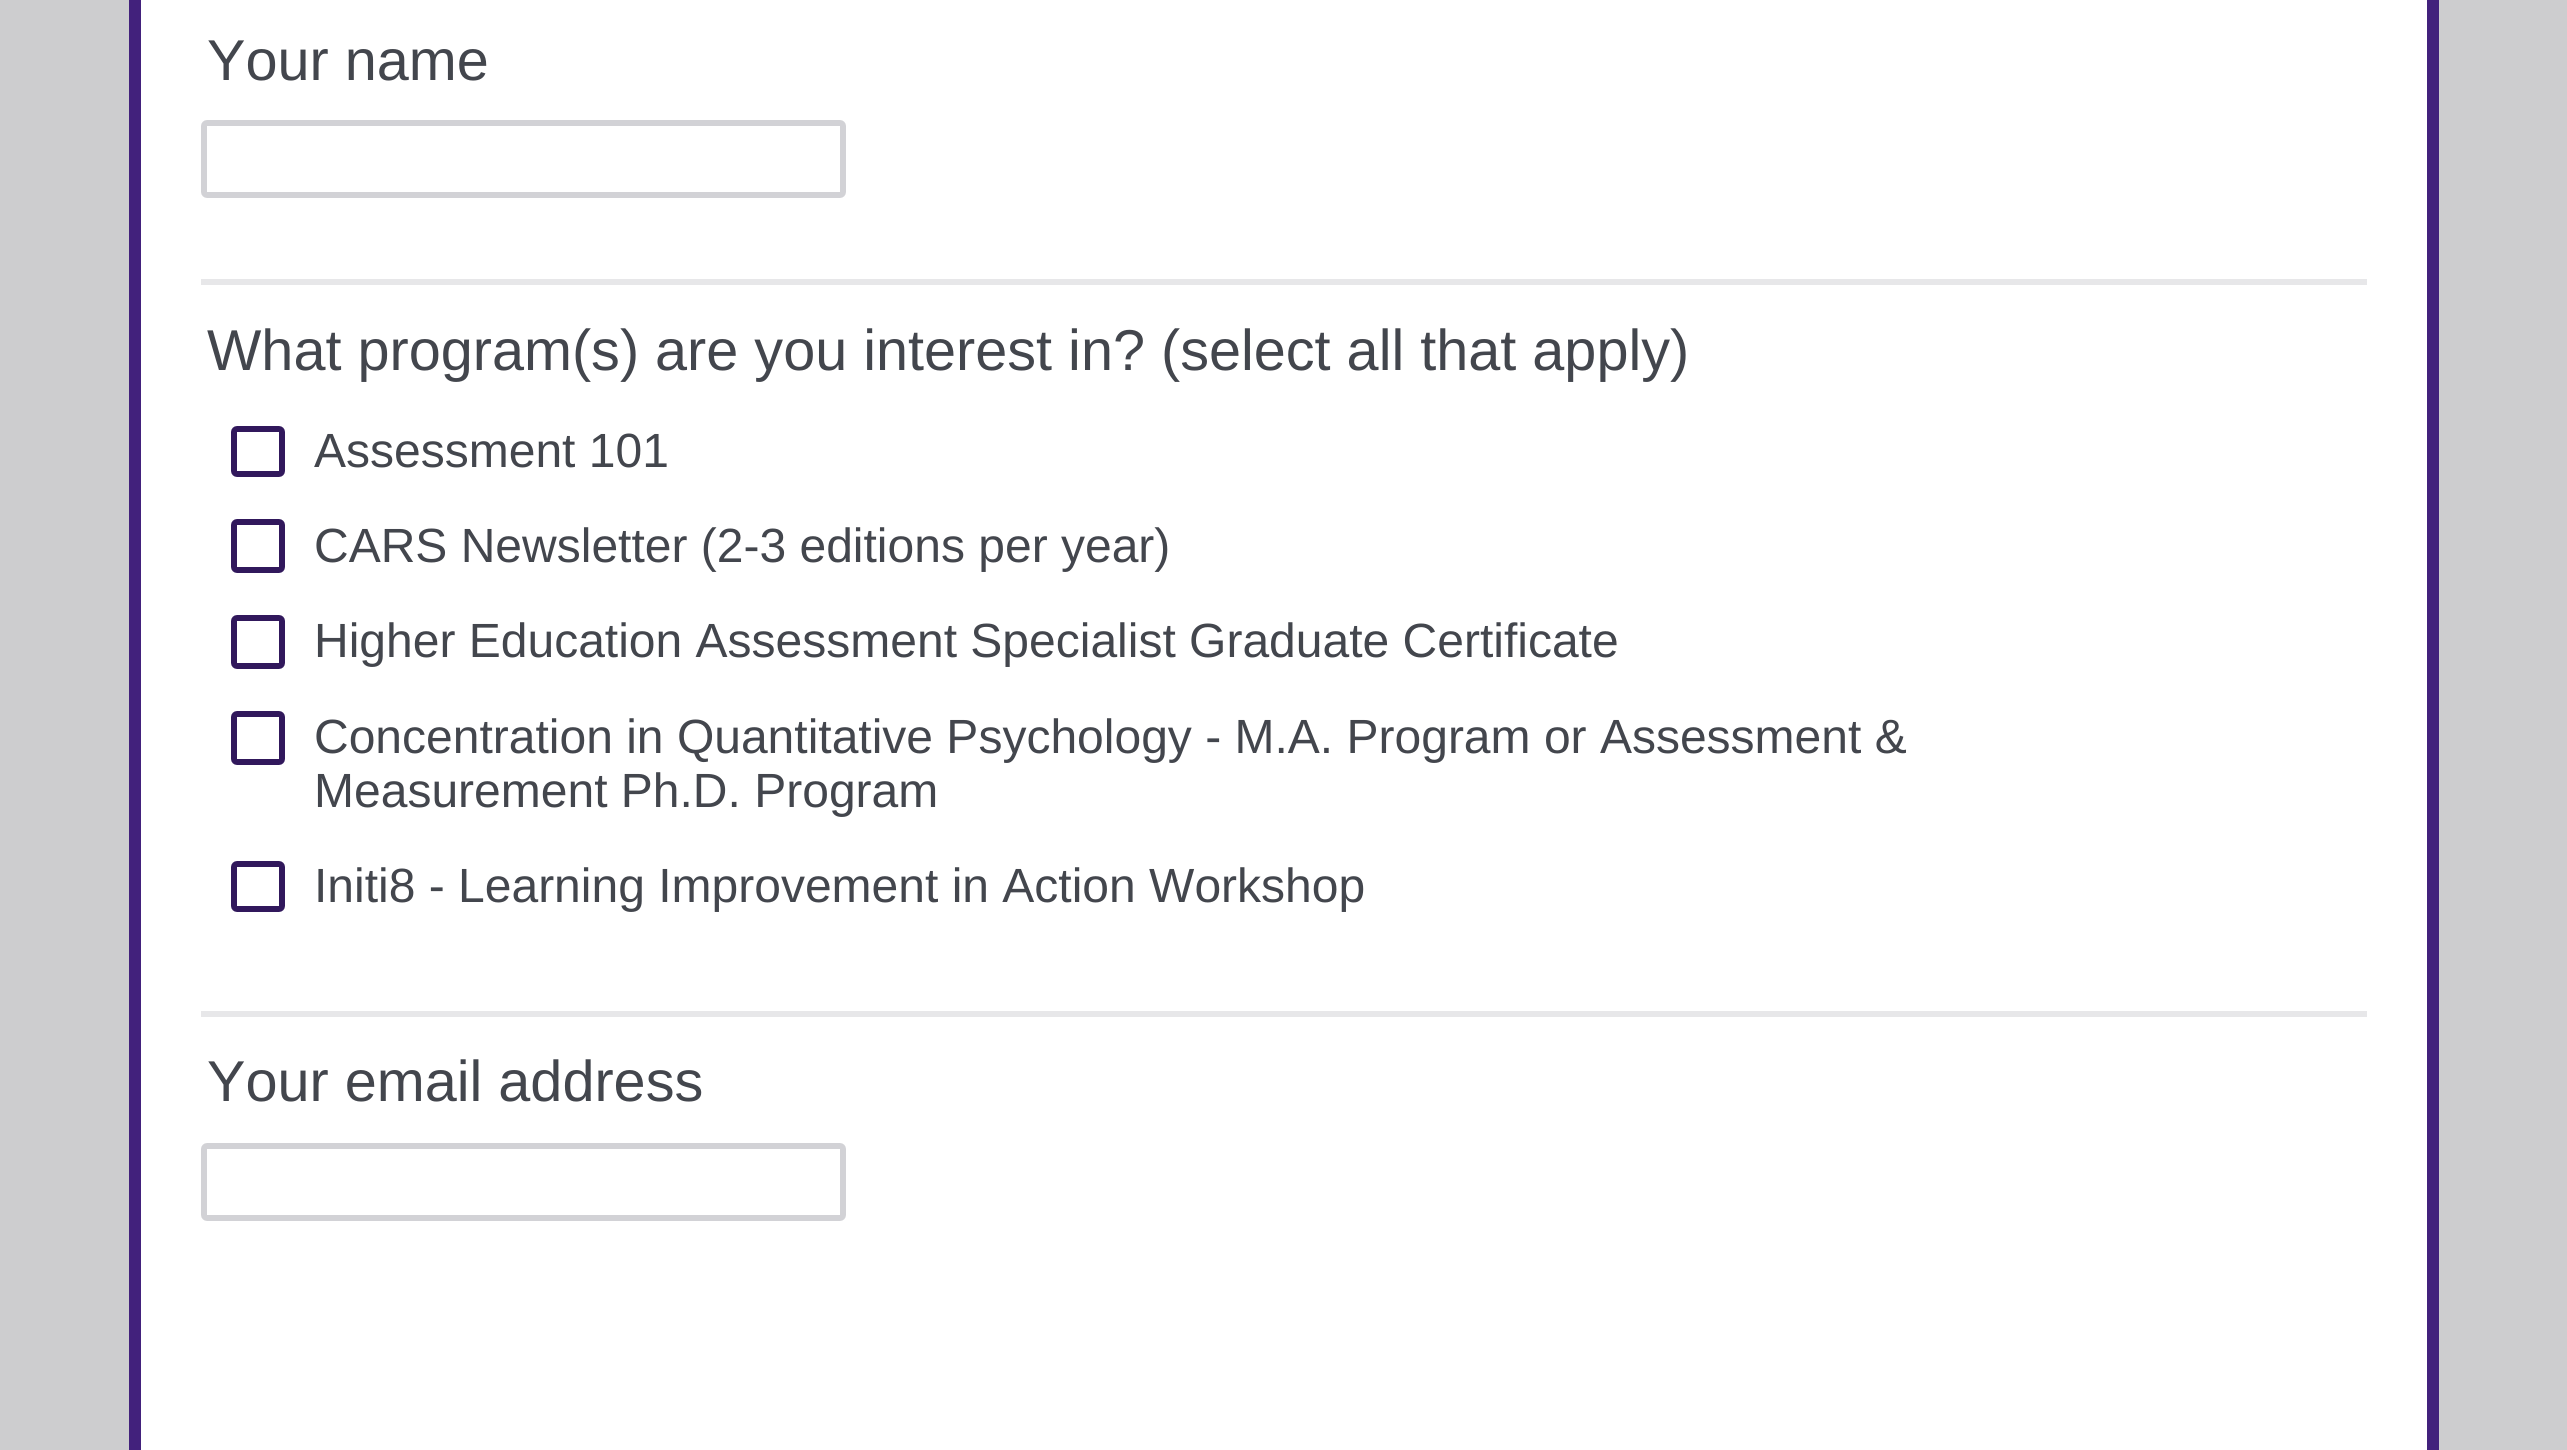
import math
import cairo

surface = cairo.ImageSurface(cairo.FORMAT_RGB24, 2567, 1450)
cr = cairo.Context(surface)
options = cairo.FontOptions()
options.set_hint_metrics(cairo.HINT_METRICS_OFF)
options.set_hint_style(cairo.HINT_STYLE_NONE)
cr.set_font_options(options)
cr.set_miter_limit(4)


def rgb(code):
    cr.set_source_rgb(*(v / 255 for v in bytes.fromhex(code[-6:])))


def rrect(x, y, w, h, r):
    cr.new_sub_path()
    for i, (u, v) in enumerate([(x + w - r, y + h - r), (x + r, y + h - r), (x + r, y + r), (x + w - r, y + r)]):
        cr.arc(u, v, r, i * math.pi / 2, (i + 1) * math.pi / 2)
    cr.close_path()


rgb("#cdcdcf")
cr.paint()
for x, y, w, h, color in [
    (141, 0, 2286, 1450, "#ffffff"),
    (2427, 0, 12, 1450, "#42217c"),
    (129, 0, 12, 1450, "#42217c"),
]:
    rgb(color)
    cr.rectangle(x, y, w, h)
    cr.fill()
rrect(204, 123, 639, 72, 3)
rgb("#d2d2d6")
cr.set_line_width(6)
cr.stroke()
rgb("#e7e7e9")
cr.rectangle(201, 279, 2166, 6)
cr.fill()
rrect(234, 429, 48, 45, 3)
rgb("#31185c")
cr.stroke()
rrect(234, 522, 48, 48, 3)
cr.stroke()
rrect(234, 618, 48, 48, 3)
cr.stroke()
rrect(234, 714, 48, 48, 3)
cr.stroke()
rrect(234, 864, 48, 45, 3)
cr.stroke()
rgb("#e7e7e9")
cr.rectangle(201, 1011, 2166, 6)
cr.fill()
rrect(204, 1146, 639, 72, 3)
rgb("#d2d2d6")
cr.stroke()
cr.select_font_face("Liberation Sans")
cr.set_font_size(57.6)
rgb("#43464d")
cr.move_to(207, 80)
cr.show_text("Your name")
cr.move_to(207, 370)
cr.show_text("What program(s) are you interest in? (select all that apply)")
cr.set_font_size(48)
for x, y, s in [
    (314, 467, "Assessment 101"),
    (314, 562, "CARS Newsletter (2-3 editions per year)"),
    (314, 657, "Higher Education Assessment Specialist Graduate Certificate"),
    (314, 753, "Concentration in Quantitative Psychology - M.A. Program or Assessment &"),
    (314, 807, "Measurement Ph.D. Program"),
    (314, 902, "Initi8 - Learning Improvement in Action Workshop"),
]:
    cr.move_to(x, y)
    cr.show_text(s)
cr.set_font_size(57.6)
cr.move_to(207, 1101)
cr.show_text("Your email address")
surface.write_to_png("page.png")
